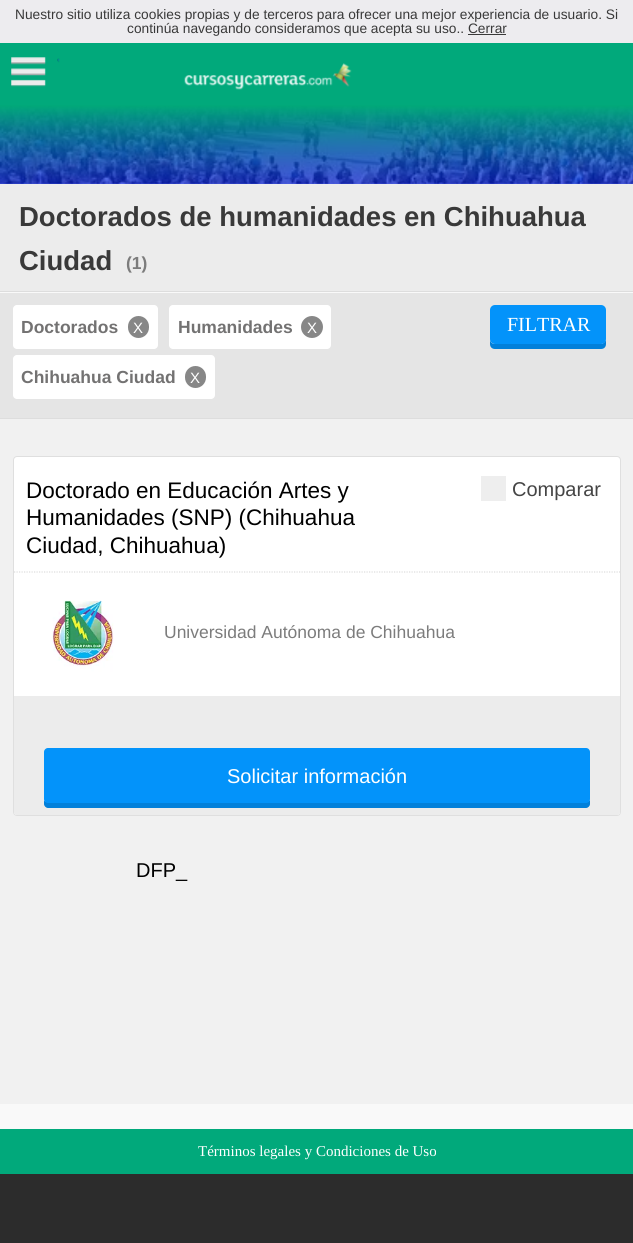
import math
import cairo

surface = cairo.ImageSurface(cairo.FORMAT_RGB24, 633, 1243)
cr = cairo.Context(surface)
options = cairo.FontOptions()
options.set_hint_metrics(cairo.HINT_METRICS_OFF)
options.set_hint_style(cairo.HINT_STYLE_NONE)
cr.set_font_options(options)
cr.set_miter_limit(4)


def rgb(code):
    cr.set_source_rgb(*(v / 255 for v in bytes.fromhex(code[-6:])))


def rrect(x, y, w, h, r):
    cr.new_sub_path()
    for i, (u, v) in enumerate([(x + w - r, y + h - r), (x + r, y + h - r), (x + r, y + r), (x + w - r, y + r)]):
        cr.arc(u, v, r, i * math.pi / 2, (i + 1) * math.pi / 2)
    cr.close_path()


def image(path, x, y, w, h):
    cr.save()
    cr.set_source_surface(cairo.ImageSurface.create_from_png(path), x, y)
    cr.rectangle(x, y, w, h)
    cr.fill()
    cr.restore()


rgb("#2c2c2c")
cr.paint()
for x, y, w, h, color in [
    (0, 0, 633, 43, "#edecef"),
    (468, 34, 38, 1, "#393939"),
    (0, 43, 633, 62, "#01a97b"),
]:
    rgb(color)
    cr.rectangle(x, y, w, h)
    cr.fill()
image("img/1.png", 11, 57, 49, 30)
image("img/2.png", 184, 63, 168, 27)
rgb("#ececec")
cr.rectangle(0, 183, 633, 108)
cr.fill()
image("img/3.png", 0, 106, 633, 78)
gradient = cairo.LinearGradient(317, 105, 317, 203)
gradient.add_color_stop_rgba(0, 0.004, 0.663, 0.471, 1)
gradient.add_color_stop_rgba(1, 0.02, 0, 1, 0.6)
cr.set_source(gradient)
cr.rectangle(0, 105, 633, 79)
cr.fill()
for x, y, w, h, color in [
    (0, 292, 633, 837, "#f9f9f9"),
    (0, 291, 633, 1, "#dddddd"),
    (0, 293, 633, 125, "#e5e5e5"),
    (0, 418, 633, 1, "#dddddd"),
]:
    rgb(color)
    cr.rectangle(x, y, w, h)
    cr.fill()
rgb("#ffffff")
rrect(13, 305, 145, 44, 4)
cr.fill()
rgb("#878787")
rrect(128, 316, 21, 22, 10.5)
cr.fill()
rgb("#ffffff")
rrect(169, 305, 162, 44, 4)
cr.fill()
rgb("#878787")
cr.arc(312, 327, 11, 0, 2 * math.pi)
cr.fill()
rgb("#ffffff")
rrect(13, 355, 202, 44, 4)
cr.fill()
rgb("#878787")
rrect(185, 366, 21, 22, 10.5)
cr.fill()
rgb("#0280da")
cr.new_path()
cr.move_to(490, 339)
cr.line_to(490, 344)
cr.curve_to(490, 347, 492, 349, 495, 349)
cr.line_to(601, 349)
cr.curve_to(604, 349, 606, 347, 606, 344)
cr.line_to(606, 340)
cr.curve_to(605, 342, 603, 344, 601, 344)
cr.line_to(495, 344)
cr.curve_to(492, 344, 490, 342, 490, 339)
cr.close_path()
cr.fill()
rgb("#0393fa")
rrect(490, 305, 116, 39, 5)
cr.fill()
rgb("#f1f1f1")
cr.rectangle(0, 419, 633, 685)
cr.fill()
rgb("#ffffff")
rrect(13.5, 456.5, 607, 359, 3.5)
cr.fill_preserve()
rgb("#dfdfdf")
cr.set_line_width(1)
cr.stroke()
cr.new_path()
cr.move_to(14, 572)
cr.line_to(620, 572)
rgb("#dddddd")
cr.set_line_width(1.2)
cr.set_dash([1.25, 1.25])
cr.stroke()
rgb("#eeeeee")
cr.rectangle(481, 476, 25, 25)
cr.fill()
image("img/4.png", 26, 585, 113, 95)
rgb("#ececec")
cr.new_path()
cr.move_to(14, 696)
cr.line_to(620, 696)
cr.line_to(620, 812.5)
cr.curve_to(620, 814, 619, 815, 617.5, 815)
cr.line_to(16.5, 815)
cr.curve_to(15, 815, 14, 814, 14, 812.5)
cr.close_path()
cr.fill()
rgb("#0280da")
cr.new_path()
cr.move_to(44, 800)
cr.line_to(44, 804)
cr.curve_to(44, 806, 46, 808, 48, 808)
cr.line_to(586, 808)
cr.curve_to(588, 808, 590, 806, 590, 804)
cr.line_to(590, 799)
cr.curve_to(590, 801, 588, 802, 586, 802)
cr.line_to(48, 802)
cr.curve_to(46, 802, 45, 802, 44, 800)
cr.close_path()
cr.fill()
rgb("#0393fa")
rrect(44, 748, 546, 55, 4)
cr.fill()
rgb("#01a97b")
cr.rectangle(0, 1129, 633, 45)
cr.fill()
cr.select_font_face("Liberation Sans")
cr.set_font_size(13.75)
rgb("#393939")
cr.move_to(15, 19)
cr.show_text("Nuestro sitio utiliza cookies propias y de terceros para ofrecer una mejor experiencia de usuario. Si")
cr.move_to(127, 33)
cr.show_text("continúa navegando consideramos que acepta su uso.. Cerrar")
cr.select_font_face("Liberation Sans", cairo.FONT_SLANT_NORMAL, cairo.FONT_WEIGHT_BOLD)
cr.set_font_size(27.5)
cr.move_to(19, 226)
cr.show_text("Doctorados de humanidades en Chihuahua")
cr.move_to(19, 270)
cr.show_text("Ciudad")
cr.set_font_size(17.5)
rgb("#7c7c7c")
cr.move_to(126, 269)
cr.show_text("(1)")
rgb("#737272")
cr.move_to(21, 333)
cr.show_text("Doctorados")
cr.select_font_face("Liberation Sans")
cr.set_font_size(15)
rgb("#ffffff")
cr.move_to(133, 333)
cr.show_text("X")
cr.select_font_face("Liberation Sans", cairo.FONT_SLANT_NORMAL, cairo.FONT_WEIGHT_BOLD)
cr.set_font_size(17.5)
rgb("#737272")
cr.move_to(178, 333)
cr.show_text("Humanidades")
cr.select_font_face("Liberation Sans")
cr.set_font_size(15)
rgb("#ffffff")
cr.move_to(307, 333)
cr.show_text("X")
cr.select_font_face("Liberation Sans", cairo.FONT_SLANT_NORMAL, cairo.FONT_WEIGHT_BOLD)
cr.set_font_size(17.5)
rgb("#737272")
cr.move_to(21, 383)
cr.show_text("Chihuahua Ciudad")
cr.select_font_face("Liberation Sans")
cr.set_font_size(15)
rgb("#ffffff")
cr.move_to(190, 383)
cr.show_text("X")
cr.select_font_face("Liberation Serif")
cr.set_font_size(20)
cr.move_to(507, 331)
cr.show_text("FILTRAR")
cr.select_font_face("Liberation Sans")
cr.set_font_size(22.5)
rgb("#000000")
for x, y, s in [
    (26, 498, "Doctorado en Educación Artes y"),
    (26, 525, "Humanidades (SNP) (Chihuahua"),
    (26, 553, "Ciudad, Chihuahua)"),
]:
    cr.move_to(x, y)
    cr.show_text(s)
cr.set_font_size(20)
rgb("#454545")
cr.move_to(512, 496)
cr.show_text("Comparar")
cr.set_font_size(17.5)
rgb("#7c7c7c")
cr.move_to(164, 638)
cr.show_text("Universidad Autónoma de Chihuahua")
cr.set_font_size(20)
rgb("#ffffff")
cr.move_to(227, 783)
cr.show_text("Solicitar información")
rgb("#000000")
cr.move_to(136, 877)
cr.show_text("DFP_")
cr.select_font_face("Liberation Serif")
cr.set_font_size(15)
rgb("#ffffff")
cr.move_to(198, 1156)
cr.show_text("Términos legales y Condiciones de Uso")
surface.write_to_png("page.png")
